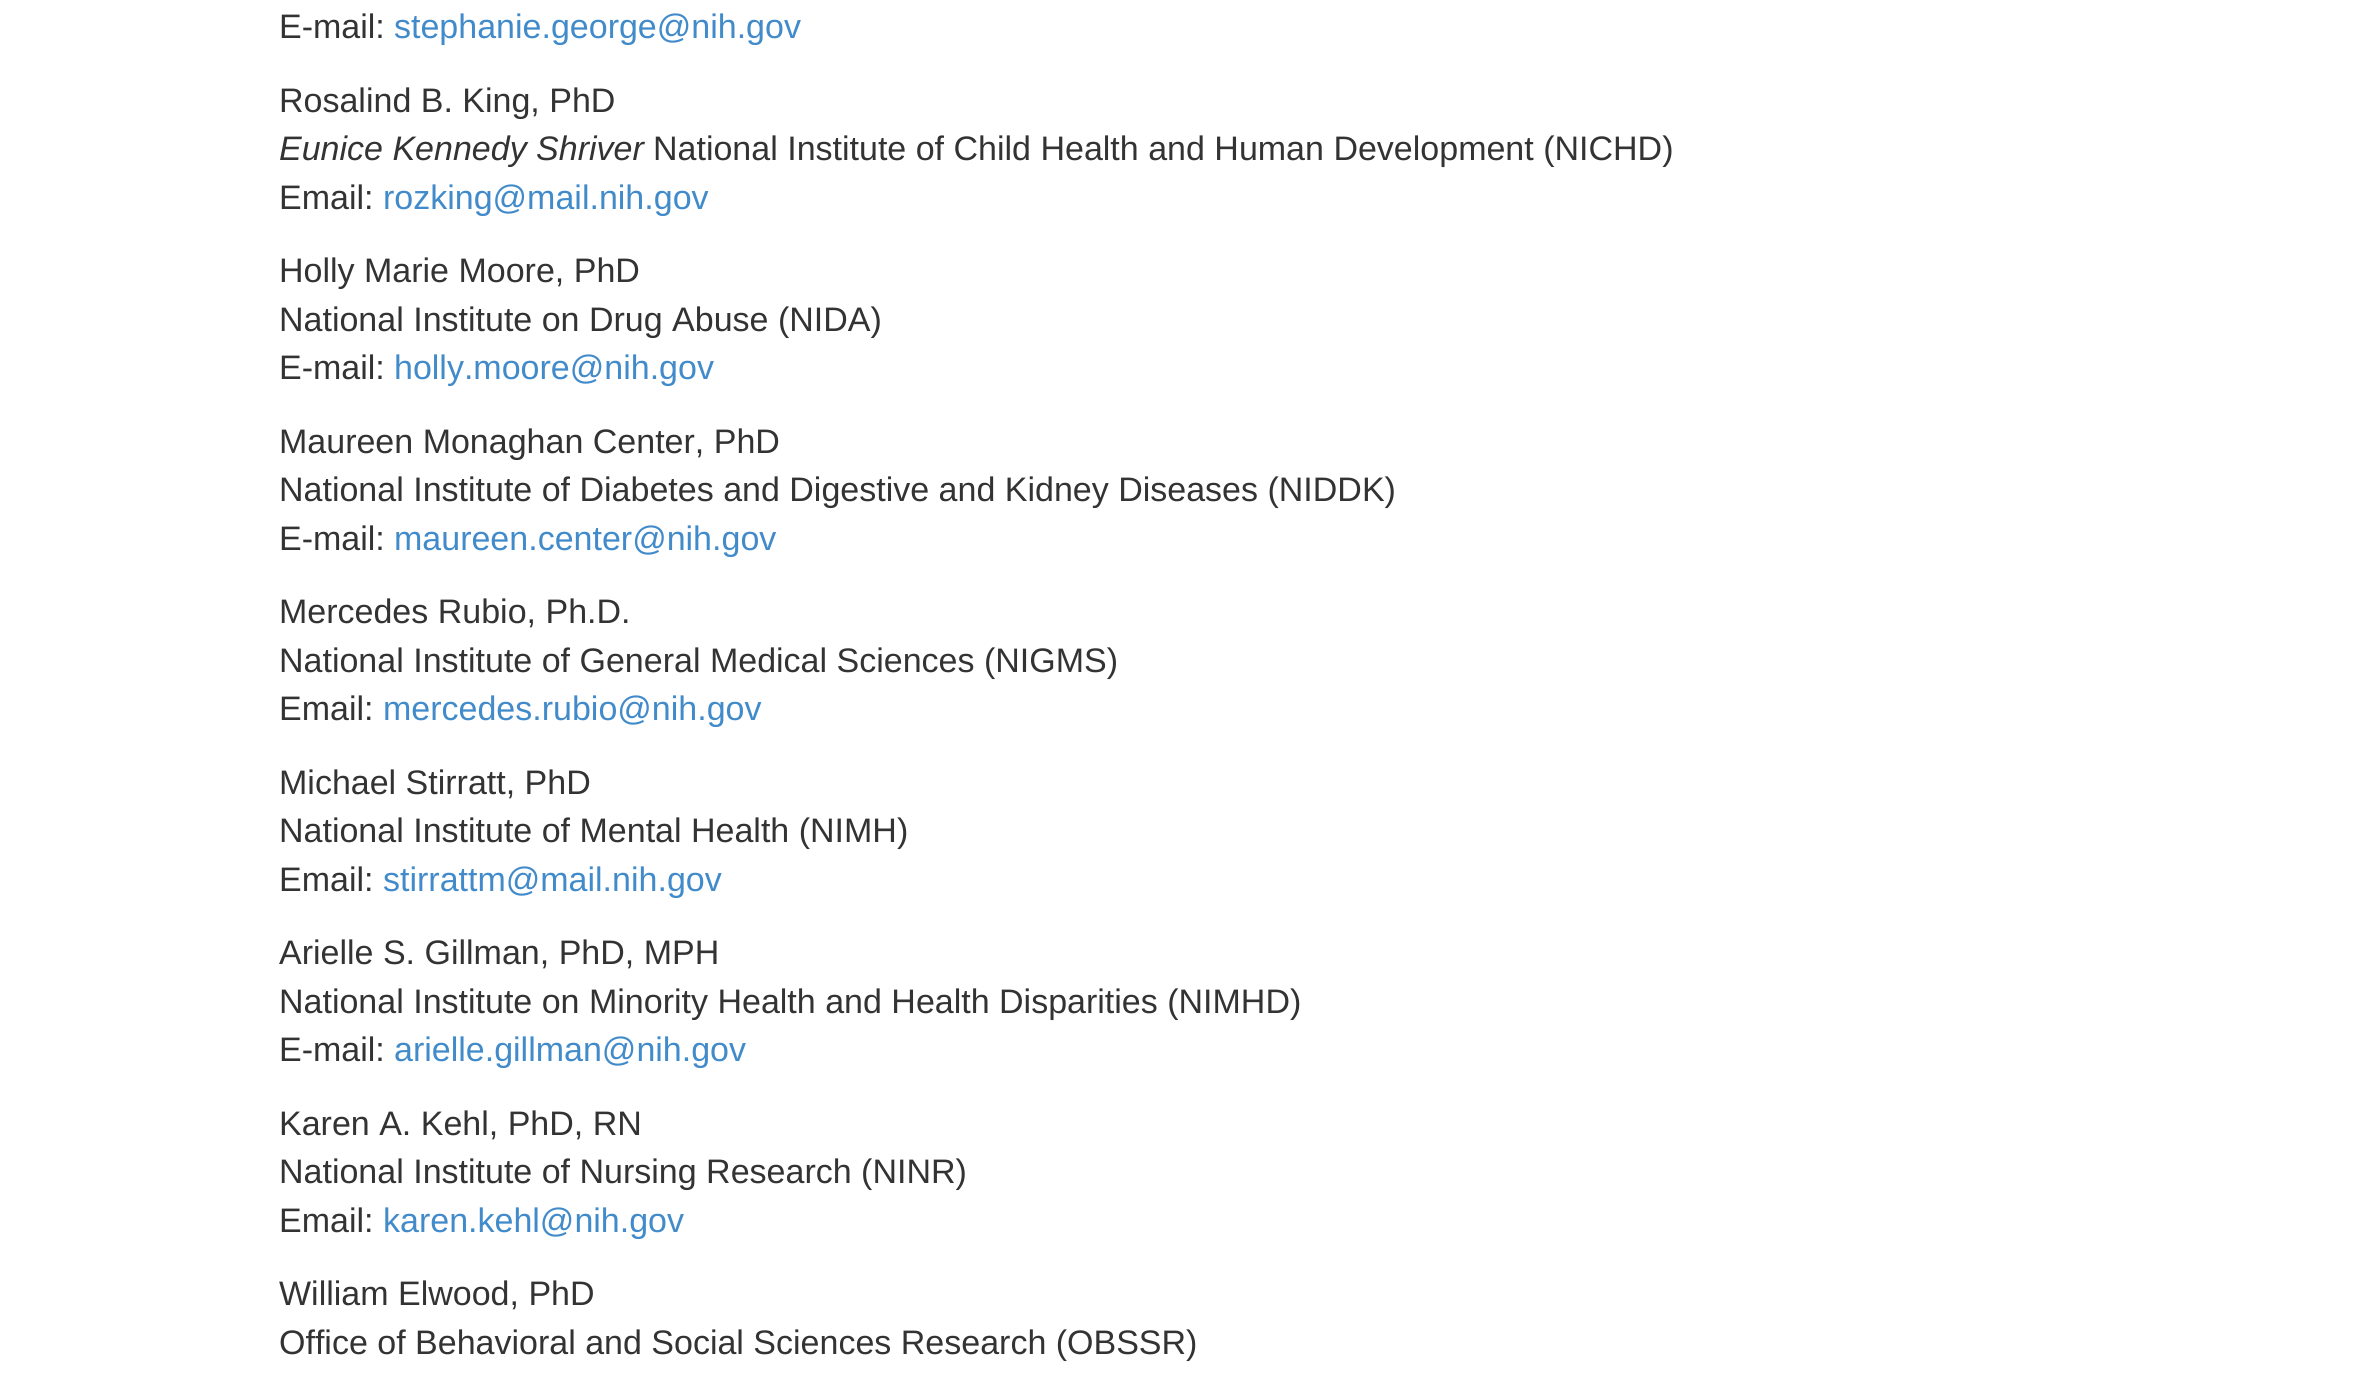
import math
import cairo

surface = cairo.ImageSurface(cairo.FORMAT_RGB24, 2357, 1381)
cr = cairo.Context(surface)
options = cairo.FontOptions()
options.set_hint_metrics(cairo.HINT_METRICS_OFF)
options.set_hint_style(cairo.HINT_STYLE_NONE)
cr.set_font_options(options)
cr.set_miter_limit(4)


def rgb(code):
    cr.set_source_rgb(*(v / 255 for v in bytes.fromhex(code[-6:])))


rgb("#ffffff")
cr.paint()
cr.select_font_face("Liberation Sans")
cr.set_font_size(34)
rgb("#333333")
cr.move_to(279, 38)
cr.show_text("E-mail:")
rgb("#428bca")
cr.move_to(394, 38)
cr.show_text("stephanie.george@nih.gov")
rgb("#333333")
cr.move_to(279, 112)
cr.show_text("Rosalind B. King, PhD")
cr.select_font_face("Liberation Sans", cairo.FONT_SLANT_ITALIC)
cr.move_to(279, 160)
cr.show_text("Eunice Kennedy Shriver")
cr.select_font_face("Liberation Sans")
cr.move_to(653, 160)
cr.show_text("National Institute of Child Health and Human Development (NICHD)")
cr.move_to(279, 209)
cr.show_text("Email:")
rgb("#428bca")
cr.move_to(383, 209)
cr.show_text("rozking@mail.nih.gov")
rgb("#333333")
for x, y, s in [
    (279, 282, "Holly Marie Moore, PhD"),
    (279, 331, "National Institute on Drug Abuse (NIDA)"),
    (279, 379, "E-mail:"),
]:
    cr.move_to(x, y)
    cr.show_text(s)
rgb("#428bca")
cr.move_to(394, 379)
cr.show_text("holly.moore@nih.gov")
rgb("#333333")
for x, y, s in [
    (279, 453, "Maureen Monaghan Center, PhD"),
    (279, 501, "National Institute of Diabetes and Digestive and Kidney Diseases (NIDDK)"),
    (279, 550, "E-mail:"),
]:
    cr.move_to(x, y)
    cr.show_text(s)
rgb("#428bca")
cr.move_to(394, 550)
cr.show_text("maureen.center@nih.gov")
rgb("#333333")
for x, y, s in [
    (279, 623, "Mercedes Rubio, Ph.D."),
    (279, 672, "National Institute of General Medical Sciences (NIGMS)"),
    (279, 720, "Email:"),
]:
    cr.move_to(x, y)
    cr.show_text(s)
rgb("#428bca")
cr.move_to(383, 720)
cr.show_text("mercedes.rubio@nih.gov")
rgb("#333333")
for x, y, s in [
    (279, 794, "Michael Stirratt, PhD"),
    (279, 842, "National Institute of Mental Health (NIMH)"),
    (279, 891, "Email:"),
]:
    cr.move_to(x, y)
    cr.show_text(s)
rgb("#428bca")
cr.move_to(383, 891)
cr.show_text("stirrattm@mail.nih.gov")
rgb("#333333")
for x, y, s in [
    (279, 964, "Arielle S. Gillman, PhD, MPH"),
    (279, 1013, "National Institute on Minority Health and Health Disparities (NIMHD)"),
    (279, 1061, "E-mail:"),
]:
    cr.move_to(x, y)
    cr.show_text(s)
rgb("#428bca")
cr.move_to(394, 1061)
cr.show_text("arielle.gillman@nih.gov")
rgb("#333333")
for x, y, s in [
    (279, 1135, "Karen A. Kehl, PhD, RN"),
    (279, 1183, "National Institute of Nursing Research (NINR)"),
    (279, 1232, "Email:"),
]:
    cr.move_to(x, y)
    cr.show_text(s)
rgb("#428bca")
cr.move_to(383, 1232)
cr.show_text("karen.kehl@nih.gov")
rgb("#333333")
cr.move_to(279, 1305)
cr.show_text("William Elwood, PhD")
cr.move_to(279, 1354)
cr.show_text("Office of Behavioral and Social Sciences Research (OBSSR)")
surface.write_to_png("page.png")
